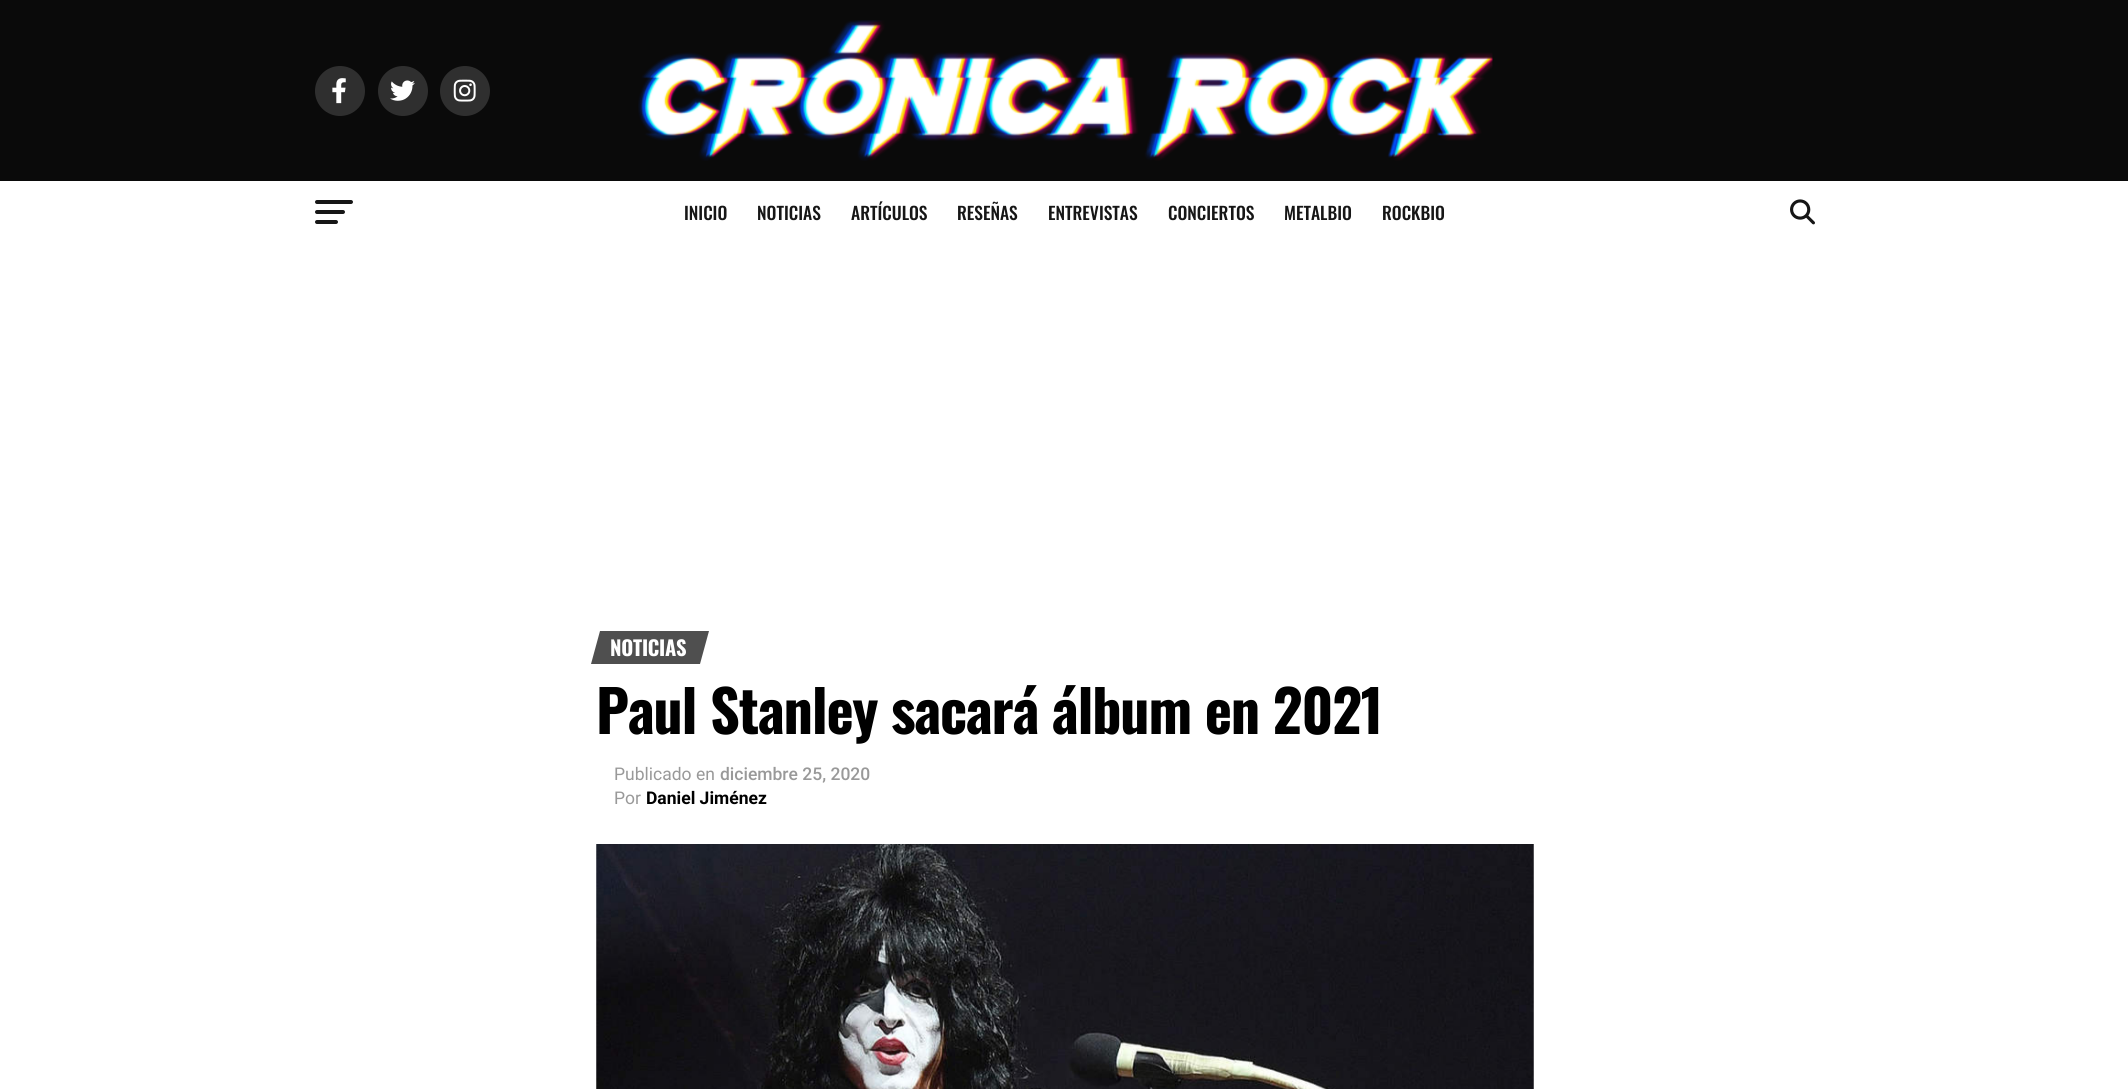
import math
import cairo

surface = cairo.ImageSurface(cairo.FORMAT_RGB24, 2128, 1089)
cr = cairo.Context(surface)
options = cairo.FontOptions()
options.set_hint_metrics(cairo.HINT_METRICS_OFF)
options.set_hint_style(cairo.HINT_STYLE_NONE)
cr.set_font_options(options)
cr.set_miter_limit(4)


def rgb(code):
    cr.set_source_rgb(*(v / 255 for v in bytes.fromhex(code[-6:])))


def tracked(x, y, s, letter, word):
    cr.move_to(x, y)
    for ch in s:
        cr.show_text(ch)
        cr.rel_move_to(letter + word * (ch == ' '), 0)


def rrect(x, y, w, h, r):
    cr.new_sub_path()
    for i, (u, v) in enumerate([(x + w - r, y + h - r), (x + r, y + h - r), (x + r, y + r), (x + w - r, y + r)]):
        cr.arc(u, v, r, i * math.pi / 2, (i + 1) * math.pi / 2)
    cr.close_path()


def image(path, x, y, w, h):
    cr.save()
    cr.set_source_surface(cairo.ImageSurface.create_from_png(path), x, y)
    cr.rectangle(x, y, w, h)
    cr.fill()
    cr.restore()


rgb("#ffffff")
cr.paint()
rgb("#0a0a0a")
cr.rectangle(0, 0, 2128, 181)
cr.fill()
rgb("#2f2f2f")
cr.arc(340, 91, 25, 0, 2 * math.pi)
cr.fill()
image("img/1.png", 332, 78, 14, 26)
cr.arc(403, 91, 25, 0, 2 * math.pi)
cr.fill()
image("img/2.png", 390, 80, 25, 21)
cr.arc(465, 91, 25, 0, 2 * math.pi)
cr.fill()
image("img/3.png", 453, 79, 23, 23)
image("img/4.png", 638, 20, 855, 141)
rgb("#161616")
rrect(315, 200, 38, 4, 2)
cr.fill()
rrect(315, 210, 30, 4, 2)
cr.fill()
rrect(315, 220, 23, 4, 2)
cr.fill()
image("img/5.png", 1790, 199, 25, 26)
rgb("#4f4f4f")
cr.new_path()
cr.move_to(600, 631)
cr.line_to(709, 631)
cr.line_to(700, 664)
cr.line_to(591, 664)
cr.close_path()
cr.fill()
image("img/6.png", 596, 844, 938, 245)
cr.select_font_face("Oswald Medium")
cr.set_font_size(17.5)
rgb("#161616")
for x, y, s in [
    (684, 220, "INICIO"),
    (757, 220, "NOTICIAS"),
    (851, 220, "ARTÍCULOS"),
    (957, 220, "RESEÑAS"),
    (1048, 220, "ENTREVISTAS"),
    (1168, 220, "CONCIERTOS"),
    (1284, 220, "METALBIO"),
    (1382, 220, "ROCKBIO"),
]:
    cr.move_to(x, y)
    cr.show_text(s)
cr.select_font_face("Oswald", cairo.FONT_SLANT_NORMAL, cairo.FONT_WEIGHT_BOLD)
cr.set_font_size(20.5)
rgb("#ffffff")
tracked(610, 656, "NOTICIAS", -0.25, 0)
cr.set_font_size(58)
rgb("#000000")
tracked(596, 734, "Paul Stanley sacará álbum en 2021", -1.15, 0)
cr.select_font_face("Roboto")
cr.set_font_size(17.5)
rgb("#999999")
cr.move_to(614, 780)
cr.show_text("Publicado en")
cr.select_font_face("Roboto Medium")
cr.move_to(720, 780)
cr.show_text("diciembre 25, 2020")
cr.select_font_face("Roboto")
cr.move_to(614, 804)
cr.show_text("Por")
cr.select_font_face("Roboto", cairo.FONT_SLANT_NORMAL, cairo.FONT_WEIGHT_BOLD)
rgb("#000000")
cr.move_to(646, 804)
cr.show_text("Daniel Jiménez")
surface.write_to_png("page.png")
